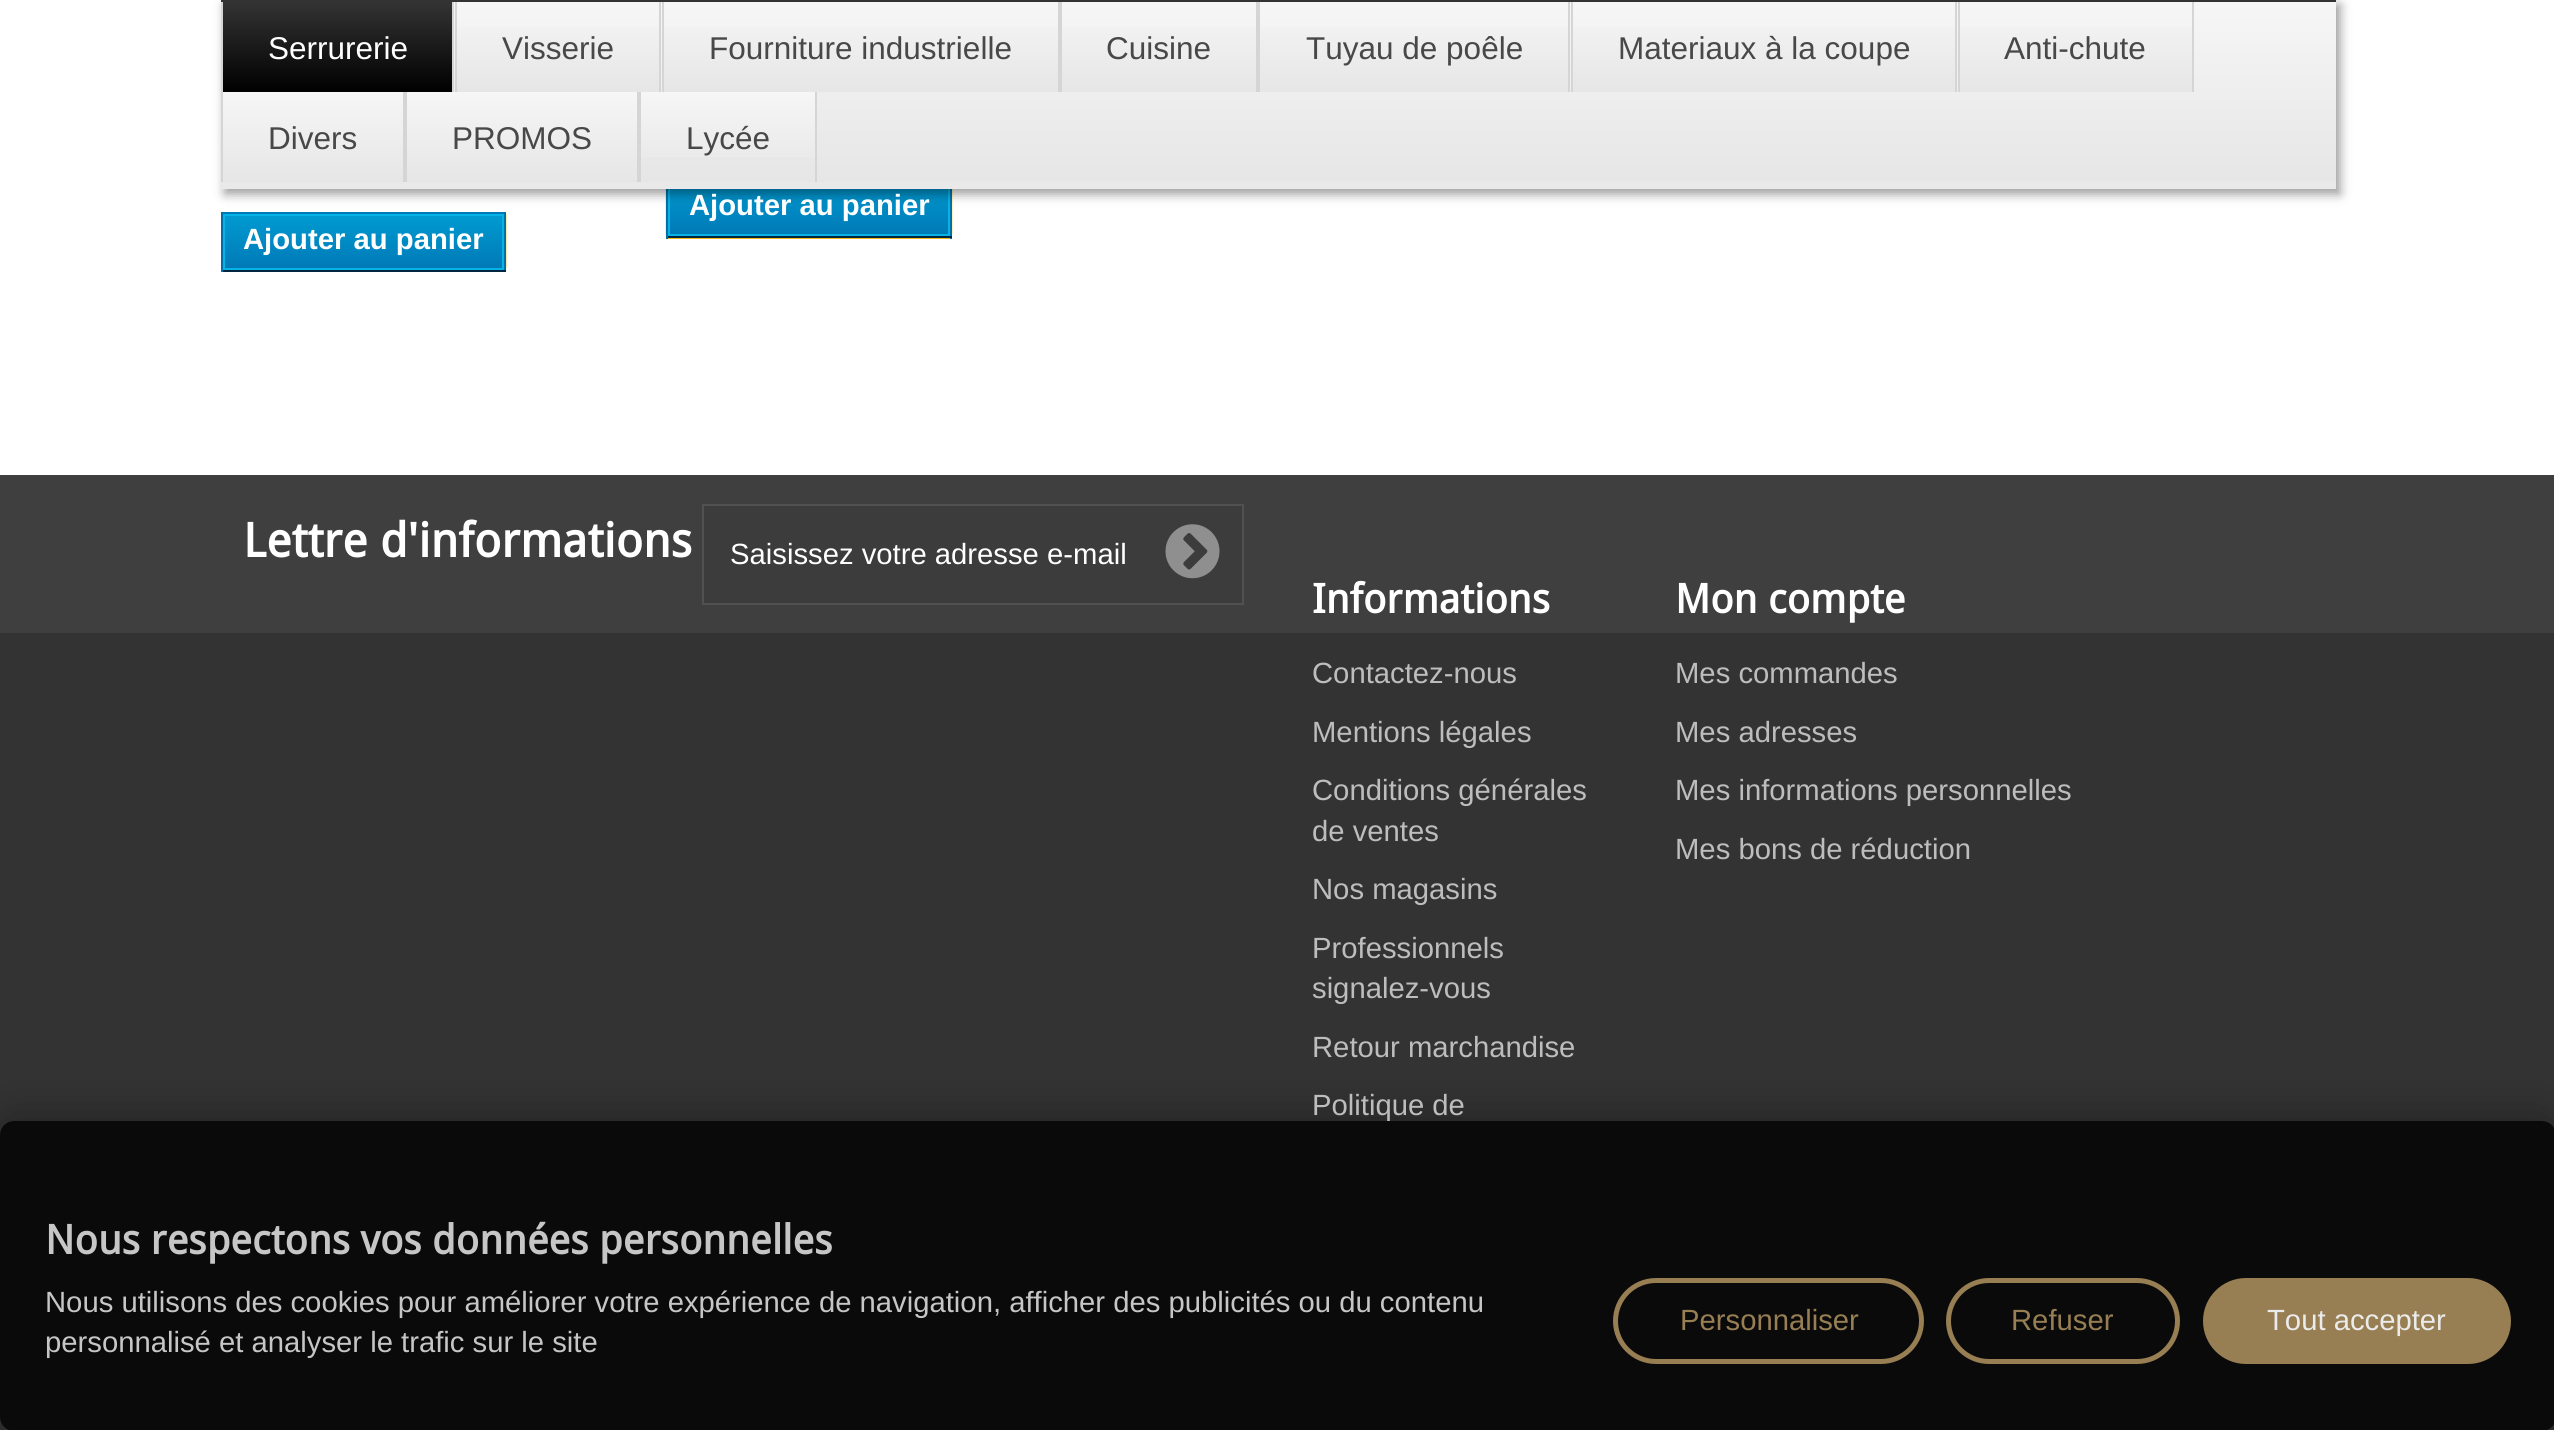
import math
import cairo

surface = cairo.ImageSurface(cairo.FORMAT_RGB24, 2554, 1430)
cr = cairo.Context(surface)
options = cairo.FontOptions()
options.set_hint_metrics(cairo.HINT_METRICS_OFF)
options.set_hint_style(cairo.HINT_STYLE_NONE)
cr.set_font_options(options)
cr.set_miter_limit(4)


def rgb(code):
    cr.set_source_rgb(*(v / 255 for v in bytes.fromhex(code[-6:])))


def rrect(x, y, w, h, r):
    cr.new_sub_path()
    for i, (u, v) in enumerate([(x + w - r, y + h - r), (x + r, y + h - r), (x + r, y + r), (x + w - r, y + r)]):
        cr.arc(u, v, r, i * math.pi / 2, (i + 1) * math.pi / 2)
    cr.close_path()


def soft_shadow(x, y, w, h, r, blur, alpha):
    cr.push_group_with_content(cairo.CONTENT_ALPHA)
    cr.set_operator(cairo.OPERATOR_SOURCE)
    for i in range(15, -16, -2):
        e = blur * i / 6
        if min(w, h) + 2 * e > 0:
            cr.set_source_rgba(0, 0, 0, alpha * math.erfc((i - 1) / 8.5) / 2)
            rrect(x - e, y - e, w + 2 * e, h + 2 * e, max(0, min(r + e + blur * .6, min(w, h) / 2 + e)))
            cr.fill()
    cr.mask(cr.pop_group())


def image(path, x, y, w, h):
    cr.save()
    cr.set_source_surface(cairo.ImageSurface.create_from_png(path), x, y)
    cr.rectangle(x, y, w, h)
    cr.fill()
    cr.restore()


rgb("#ffffff")
cr.paint()
image("img/1.png", 665, 189, 288, 46)
for x, y, w, h, color in [
    (950, 189, 2, 50, "#006fa8"),
    (666, 236, 286, 2, "#012740"),
    (666, 189, 2, 50, "#006fa8"),
]:
    rgb(color)
    cr.rectangle(x, y, w, h)
    cr.fill()
gradient = cairo.LinearGradient(809, 182, 809, 234)
gradient.add_color_stop_rgba(0, 0, 0.604, 0.816, 1)
gradient.add_color_stop_rgba(1, 0, 0.478, 0.718, 1)
cr.set_source(gradient)
cr.rectangle(670, 189, 278, 45)
cr.fill()
cr.rectangle(669, 181, 280, 54)
rgb("#06b2e6")
cr.stroke()
rgb("#000000")
soft_shadow(225, 5, 2115, 189, 0, 5.5, 0.4)
rgb("#333333")
cr.rectangle(221, 0, 2115, 2)
cr.fill()
gradient = cairo.LinearGradient(221, 2.2, 221, 182)
gradient.add_color_stop_rgba(0, 0.965, 0.965, 0.965, 1)
gradient.add_color_stop_rgba(1, 0.902, 0.902, 0.902, 1)
cr.set_source(gradient)
cr.rectangle(454, 2, 1882, 180)
cr.fill()
for x, y, w, h, color in [
    (221, 182, 2115, 7, "#e9e9e9"),
    (452, 2, 2, 90, "#d6d4d4"),
    (221, 2, 2, 180, "#d6d4d4"),
]:
    rgb(color)
    cr.rectangle(x, y, w, h)
    cr.fill()
gradient = cairo.LinearGradient(223, 2.2, 223, 92)
gradient.add_color_stop_rgba(0, 0.2, 0.2, 0.2, 1)
gradient.add_color_stop_rgba(1, 0, 0, 0, 1)
cr.set_source(gradient)
cr.rectangle(223, 2, 229, 90)
cr.fill()
rgb("#d6d4d4")
cr.rectangle(659, 2, 2, 90)
cr.fill()
cr.rectangle(455, 2, 2, 90)
cr.fill()
gradient = cairo.LinearGradient(457, 2.2, 457, 92)
gradient.add_color_stop_rgba(0, 0.965, 0.965, 0.965, 1)
gradient.add_color_stop_rgba(1, 0.902, 0.902, 0.902, 1)
cr.set_source(gradient)
cr.rectangle(457, 27, 202, 65)
cr.fill()
rgb("#d6d4d4")
cr.rectangle(1058, 2, 4, 90)
cr.fill()
cr.rectangle(662, 2, 2, 90)
cr.fill()
gradient = cairo.LinearGradient(664, 2.2, 664, 92)
gradient.add_color_stop_rgba(0, 0.965, 0.965, 0.965, 1)
gradient.add_color_stop_rgba(1, 0.902, 0.902, 0.902, 1)
cr.set_source(gradient)
cr.rectangle(664, 27, 394, 65)
cr.fill()
rgb("#d6d4d4")
cr.rectangle(1256, 2, 4, 90)
cr.fill()
gradient = cairo.LinearGradient(1062, 2.2, 1062, 92)
gradient.add_color_stop_rgba(0, 0.965, 0.965, 0.965, 1)
gradient.add_color_stop_rgba(1, 0.902, 0.902, 0.902, 1)
cr.set_source(gradient)
cr.rectangle(1062, 27, 194, 65)
cr.fill()
rgb("#d6d4d4")
cr.rectangle(1568, 2, 2, 90)
cr.fill()
gradient = cairo.LinearGradient(1260, 2.2, 1260, 92)
gradient.add_color_stop_rgba(0, 0.965, 0.965, 0.965, 1)
gradient.add_color_stop_rgba(1, 0.902, 0.902, 0.902, 1)
cr.set_source(gradient)
cr.rectangle(1260, 27, 308, 65)
cr.fill()
rgb("#d6d4d4")
cr.rectangle(1955, 2, 2, 90)
cr.fill()
cr.rectangle(1571, 2, 2, 90)
cr.fill()
gradient = cairo.LinearGradient(1573, 2.2, 1573, 92)
gradient.add_color_stop_rgba(0, 0.965, 0.965, 0.965, 1)
gradient.add_color_stop_rgba(1, 0.902, 0.902, 0.902, 1)
cr.set_source(gradient)
cr.rectangle(1573, 27, 382, 65)
cr.fill()
rgb("#d6d4d4")
cr.rectangle(2192, 2, 2, 90)
cr.fill()
cr.rectangle(1958, 2, 2, 90)
cr.fill()
gradient = cairo.LinearGradient(1960, 2.2, 1960, 92)
gradient.add_color_stop_rgba(0, 0.965, 0.965, 0.965, 1)
gradient.add_color_stop_rgba(1, 0.902, 0.902, 0.902, 1)
cr.set_source(gradient)
cr.rectangle(1960, 27, 232, 65)
cr.fill()
rgb("#d6d4d4")
cr.rectangle(403, 92, 4, 90)
cr.fill()
gradient = cairo.LinearGradient(223, 92, 223, 182)
gradient.add_color_stop_rgba(0, 0.965, 0.965, 0.965, 1)
gradient.add_color_stop_rgba(1, 0.902, 0.902, 0.902, 1)
cr.set_source(gradient)
cr.rectangle(223, 92, 180, 90)
cr.fill()
rgb("#d6d4d4")
cr.rectangle(637, 92, 4, 90)
cr.fill()
gradient = cairo.LinearGradient(407, 92, 407, 182)
gradient.add_color_stop_rgba(0, 0.965, 0.965, 0.965, 1)
gradient.add_color_stop_rgba(1, 0.902, 0.902, 0.902, 1)
cr.set_source(gradient)
cr.rectangle(407, 92, 230, 90)
cr.fill()
rgb("#d6d4d4")
cr.rectangle(815, 92, 2, 90)
cr.fill()
gradient = cairo.LinearGradient(641, 92, 641, 182)
gradient.add_color_stop_rgba(0, 0.965, 0.965, 0.965, 1)
gradient.add_color_stop_rgba(1, 0.902, 0.902, 0.902, 1)
cr.set_source(gradient)
cr.rectangle(641, 92, 174, 65)
cr.fill()
rgb("#f4b61b")
cr.rectangle(668, 238, 282, 1)
cr.fill()
image("img/2.png", 506, 213, 1, 56)
for x, y, w, h, color in [
    (221, 212, 285, 2, "#0079b6"),
    (504, 212, 2, 60, "#006fa8"),
    (221, 270, 285, 2, "#012740"),
    (221, 212, 2, 60, "#006fa8"),
]:
    rgb(color)
    cr.rectangle(x, y, w, h)
    cr.fill()
gradient = cairo.LinearGradient(363, 216, 363, 268)
gradient.add_color_stop_rgba(0, 0, 0.604, 0.816, 1)
gradient.add_color_stop_rgba(1, 0, 0.478, 0.718, 1)
cr.set_source(gradient)
cr.rectangle(225, 216, 277, 52)
cr.fill()
cr.rectangle(224, 215, 279, 54)
rgb("#06b2e6")
cr.stroke()
rgb("#333333")
cr.rectangle(0, 633, 2554, 797)
cr.fill()
rgb("#3f3f3f")
cr.rectangle(0, 475, 2554, 158)
cr.fill()
rgb("#3c3c3c")
cr.rectangle(703, 505, 540, 99)
cr.fill_preserve()
rgb("#515151")
cr.stroke()
image("img/3.png", 1165, 524, 55, 55)
cr.save()
cr.set_fill_rule(cairo.FILL_RULE_EVEN_ODD)
cr.new_path()
cr.move_to(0, 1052)
cr.line_to(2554, 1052)
cr.line_to(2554, 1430)
cr.line_to(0, 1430)
cr.close_path()
cr.move_to(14, 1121)
cr.line_to(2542, 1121)
cr.curve_to(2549.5, 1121, 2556, 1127.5, 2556, 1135)
cr.line_to(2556, 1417)
cr.curve_to(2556, 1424.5, 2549.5, 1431, 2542, 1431)
cr.line_to(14, 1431)
cr.curve_to(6.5, 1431, 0, 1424.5, 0, 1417)
cr.line_to(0, 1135)
cr.curve_to(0, 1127.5, 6.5, 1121, 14, 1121)
cr.close_path()
cr.clip()
rgb("#000000")
soft_shadow(0, 1121, 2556, 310, 14, 22.5, 0.36)
cr.restore()
cr.select_font_face("Liberation Sans")
cr.set_font_size(31.5)
rgb("#ffffff")
cr.move_to(268, 59)
cr.show_text("Serrurerie")
rgb("#484848")
for x, y, s in [
    (502, 59, "Visserie"),
    (709, 59, "Fourniture industrielle"),
    (1106, 59, "Cuisine"),
    (1306, 59, "Tuyau de poêle"),
    (1618, 59, "Materiaux à la coupe"),
    (2004, 59, "Anti-chute"),
    (268, 149, "Divers"),
    (452, 149, "PROMOS"),
    (686, 149, "Lycée"),
]:
    cr.move_to(x, y)
    cr.show_text(s)
cr.select_font_face("Liberation Sans", cairo.FONT_SLANT_NORMAL, cairo.FONT_WEIGHT_BOLD)
cr.set_font_size(29.25)
rgb("#ffffff")
cr.move_to(689, 215)
cr.show_text("Ajouter au panier")
cr.move_to(243, 249)
cr.show_text("Ajouter au panier")
cr.select_font_face("Droid Sans", cairo.FONT_SLANT_NORMAL, cairo.FONT_WEIGHT_BOLD)
cr.set_font_size(47.25)
cr.move_to(243, 557)
cr.show_text("Lettre d'informations")
cr.select_font_face("Liberation Sans")
cr.set_font_size(29.25)
cr.move_to(730, 564)
cr.show_text("Saisissez votre adresse e-mail")
cr.select_font_face("Droid Sans", cairo.FONT_SLANT_NORMAL, cairo.FONT_WEIGHT_BOLD)
cr.set_font_size(40.5)
cr.move_to(1312, 613)
cr.show_text("Informations")
cr.select_font_face("Liberation Sans")
cr.set_font_size(29.25)
rgb("#bdbdbd")
for x, y, s in [
    (1312, 683, "Contactez-nous"),
    (1312, 742, "Mentions légales"),
    (1312, 800, "Conditions générales"),
    (1312, 841, "de ventes"),
    (1312, 899, "Nos magasins"),
    (1312, 958, "Professionnels"),
    (1312, 998, "signalez-vous"),
    (1312, 1057, "Retour marchandise"),
    (1312, 1115, "Politique de"),
]:
    cr.move_to(x, y)
    cr.show_text(s)
cr.select_font_face("Droid Sans", cairo.FONT_SLANT_NORMAL, cairo.FONT_WEIGHT_BOLD)
cr.set_font_size(40.5)
rgb("#ffffff")
cr.move_to(1675, 613)
cr.show_text("Mon compte")
cr.select_font_face("Liberation Sans")
cr.set_font_size(29.25)
rgb("#bdbdbd")
for x, y, s in [
    (1675, 683, "Mes commandes"),
    (1675, 742, "Mes adresses"),
    (1675, 800, "Mes informations personnelles"),
    (1675, 859, "Mes bons de réduction"),
]:
    cr.move_to(x, y)
    cr.show_text(s)
cr.set_source_rgba(0, 0, 0, 0.81)
rrect(0, 1121, 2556, 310, 14)
cr.fill()
cr.select_font_face("Droid Sans", cairo.FONT_SLANT_NORMAL, cairo.FONT_WEIGHT_BOLD)
cr.set_font_size(40.5)
rgb("#c6c6c6")
cr.move_to(45, 1254)
cr.show_text("Nous respectons vos données personnelles")
cr.select_font_face("Liberation Sans")
cr.set_font_size(29.25)
cr.move_to(45, 1312)
cr.show_text("Nous utilisons des cookies pour améliorer votre expérience de navigation, afficher des publicités ou du contenu")
cr.move_to(45, 1352)
cr.show_text("personnalisé et analyser le trafic sur le site")
rrect(1615.5, 1280.5, 306, 81, 40.5)
rgb("#977e53")
cr.set_line_width(5)
cr.stroke()
cr.move_to(1680, 1330)
cr.show_text("Personnaliser")
rrect(1948.5, 1280.5, 229, 81, 40.5)
cr.stroke()
cr.move_to(2011, 1330)
cr.show_text("Refuser")
rrect(2205.5, 1280.5, 303, 81, 40.5)
cr.fill_preserve()
cr.stroke()
rgb("#ebebeb")
cr.move_to(2267, 1330)
cr.show_text("Tout accepter")
surface.write_to_png("page.png")
